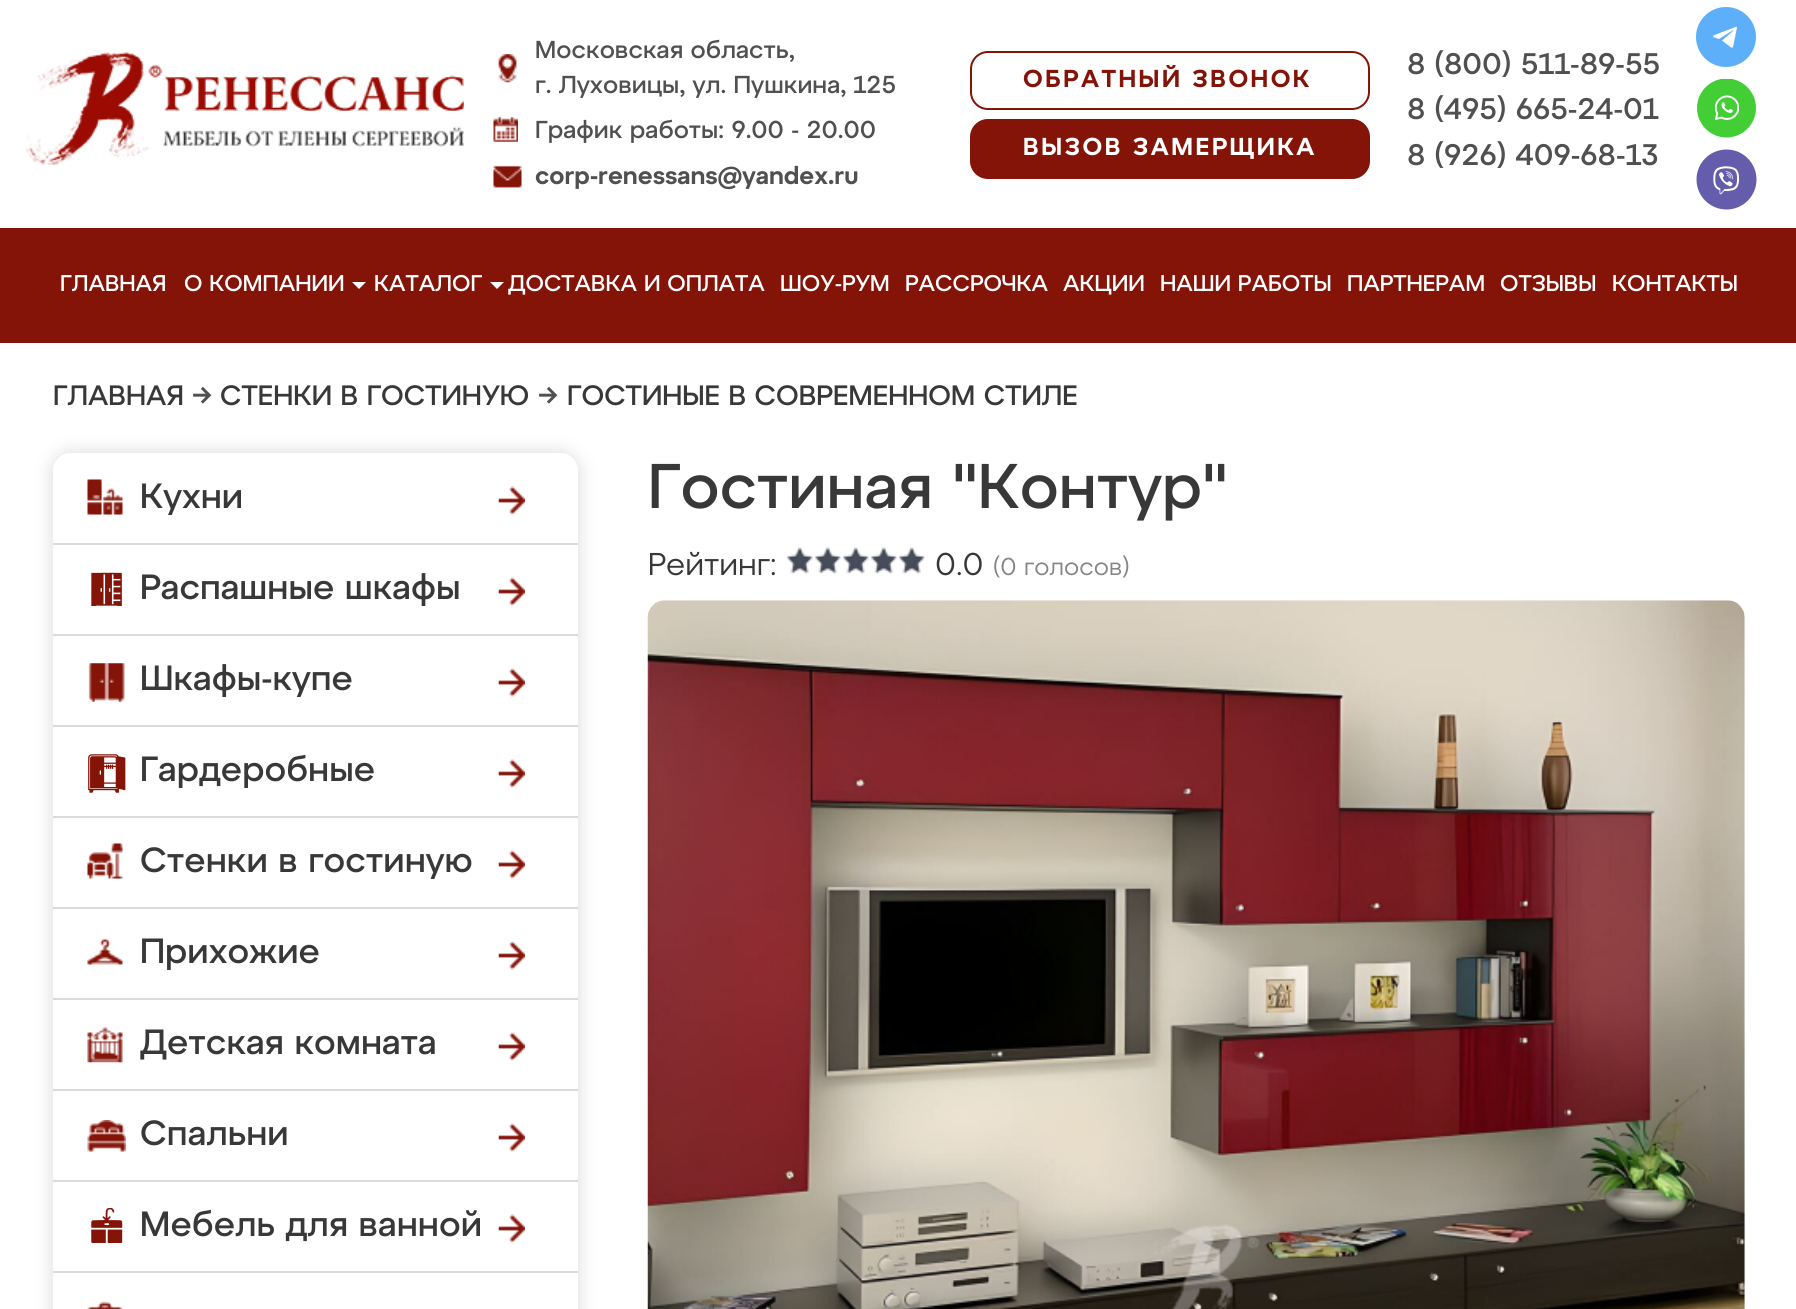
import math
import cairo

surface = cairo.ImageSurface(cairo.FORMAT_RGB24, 1796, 1309)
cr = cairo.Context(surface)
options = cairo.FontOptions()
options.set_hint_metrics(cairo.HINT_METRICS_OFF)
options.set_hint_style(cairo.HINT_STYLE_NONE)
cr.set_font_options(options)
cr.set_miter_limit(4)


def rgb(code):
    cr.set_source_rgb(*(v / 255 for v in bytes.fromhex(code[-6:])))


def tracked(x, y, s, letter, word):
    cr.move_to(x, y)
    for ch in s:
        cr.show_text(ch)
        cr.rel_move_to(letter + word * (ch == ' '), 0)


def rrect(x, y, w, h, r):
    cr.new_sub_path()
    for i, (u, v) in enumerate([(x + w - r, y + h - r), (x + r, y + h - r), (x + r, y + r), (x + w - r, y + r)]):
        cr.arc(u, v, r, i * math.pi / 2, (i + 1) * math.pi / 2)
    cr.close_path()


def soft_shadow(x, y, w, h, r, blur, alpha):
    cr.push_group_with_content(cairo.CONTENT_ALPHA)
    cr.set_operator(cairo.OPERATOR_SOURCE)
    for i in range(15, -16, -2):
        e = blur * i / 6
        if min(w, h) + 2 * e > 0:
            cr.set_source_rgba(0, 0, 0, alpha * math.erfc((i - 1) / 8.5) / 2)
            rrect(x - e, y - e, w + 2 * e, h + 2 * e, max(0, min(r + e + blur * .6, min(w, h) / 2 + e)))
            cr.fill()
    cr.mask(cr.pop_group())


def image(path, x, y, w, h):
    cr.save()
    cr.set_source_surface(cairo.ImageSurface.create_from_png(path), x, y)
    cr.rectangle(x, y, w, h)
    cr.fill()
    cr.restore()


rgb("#ffffff")
cr.paint()
image("img/1.png", 26, 52, 438, 113)
image("img/2.png", 498, 54, 19, 29)
image("img/3.png", 493, 117, 25, 25)
image("img/4.png", 493, 165, 29, 23)
rrect(971, 52, 398, 57, 17)
rgb("#841308")
cr.stroke()
rrect(971, 120, 398, 58, 17)
cr.fill_preserve()
cr.stroke()
rgb("#5eaff9")
cr.arc(1726, 37, 30, 0, 2 * math.pi)
cr.fill()
rgb("#ffffff")
cr.new_path()
cr.move_to(1737, 27.5)
cr.line_to(1733, 47)
cr.curve_to(1733, 47, 1732.5, 48, 1731, 47.5)
cr.line_to(1722, 40.5)
cr.line_to(1732.5, 31.5)
cr.line_to(1733.5, 30.5)
cr.line_to(1732.5, 30.5)
cr.line_to(1719, 39)
cr.curve_to(1710, 36, 1711, 36.5, 1721, 32.5)
cr.line_to(1735.5, 27)
cr.curve_to(1736, 26.5, 1737, 27, 1737, 27.5)
cr.close_path()
cr.fill()
image("img/5.png", 1697, 79, 59, 59)
image("img/6.png", 1696, 149, 61, 61)
rgb("#841308")
cr.rectangle(0, 228, 1796, 115)
cr.fill()
rgb("#ffffff")
cr.new_path()
cr.move_to(359, 289)
cr.line_to(352, 282)
cr.line_to(366, 282)
cr.close_path()
cr.fill()
cr.new_path()
cr.move_to(497, 289)
cr.line_to(490, 282)
cr.line_to(504, 282)
cr.close_path()
cr.fill()
cr.save()
cr.set_fill_rule(cairo.FILL_RULE_EVEN_ODD)
cr.new_path()
cr.move_to(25, 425)
cr.line_to(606, 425)
cr.line_to(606, 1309)
cr.line_to(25, 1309)
cr.close_path()
cr.move_to(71, 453)
cr.line_to(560, 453)
cr.curve_to(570, 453, 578, 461, 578, 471)
cr.line_to(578, 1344)
cr.curve_to(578, 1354, 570, 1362, 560, 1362)
cr.line_to(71, 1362)
cr.curve_to(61, 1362, 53, 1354, 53, 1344)
cr.line_to(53, 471)
cr.curve_to(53, 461, 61, 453, 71, 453)
cr.close_path()
cr.clip()
rgb("#d9d9d9")
soft_shadow(53, 453, 525, 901, 18, 9, 1)
cr.restore()
rgb("#dbdbdb")
cr.rectangle(53, 543, 525, 2)
cr.fill()
image("img/7.png", 87, 479, 36, 36)
image("img/8.png", 498, 486, 27, 29)
cr.rectangle(53, 634, 525, 2)
cr.fill()
image("img/9.png", 91, 572, 31, 34)
image("img/8.png", 498, 577, 27, 29)
cr.rectangle(53, 725, 525, 2)
cr.fill()
image("img/10.png", 88, 663, 37, 39)
image("img/8.png", 498, 668, 27, 29)
cr.rectangle(53, 816, 525, 2)
cr.fill()
image("img/11.png", 88, 754, 38, 39)
image("img/8.png", 498, 759, 27, 29)
cr.rectangle(53, 907, 525, 2)
cr.fill()
image("img/12.png", 87, 843, 36, 36)
image("img/8.png", 498, 850, 27, 29)
cr.rectangle(53, 998, 525, 2)
cr.fill()
image("img/13.png", 87, 938, 36, 28)
image("img/8.png", 498, 941, 27, 29)
cr.rectangle(53, 1089, 525, 2)
cr.fill()
image("img/14.png", 87, 1027, 36, 36)
image("img/8.png", 498, 1032, 27, 29)
cr.rectangle(53, 1180, 525, 2)
cr.fill()
image("img/15.png", 87, 1120, 39, 32)
image("img/8.png", 498, 1123, 27, 29)
cr.rectangle(53, 1271, 525, 2)
cr.fill()
image("img/16.png", 91, 1208, 32, 35)
image("img/8.png", 498, 1214, 27, 29)
image("img/17.png", 87, 1301, 36, 8)
image("img/18.png", 787, 547, 138, 27)
image("img/19.png", 647, 600, 1098, 709)
cr.select_font_face("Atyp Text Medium")
cr.set_font_size(24.5)
rgb("#505050")
for x, y, s in [
    (535, 58, "Московская область,"),
    (535, 93, "г. Луховицы, ул. Пушкина, 125"),
    (535, 138, "График работы: 9.00 - 20.00"),
]:
    cr.move_to(x, y)
    cr.show_text(s)
cr.select_font_face("Atyp Text SemiBold")
cr.move_to(535, 184)
cr.show_text("corp-renessans@yandex.ru")
rgb("#841308")
tracked(1023, 87, "ОБРАТНЫЙ ЗВОНОК", 2.5, 0)
rgb("#ffffff")
tracked(1023, 155, "ВЫЗОВ ЗАМЕРЩИКА", 2.5, 0)
cr.select_font_face("Atyp Text Medium")
cr.set_font_size(29.75)
rgb("#505050")
for x, y, s in [
    (1407, 74, "8 (800) 511-89-55"),
    (1407, 119, "8 (495) 665-24-01"),
    (1407, 165, "8 (926) 409-68-13"),
]:
    cr.move_to(x, y)
    cr.show_text(s)
cr.set_font_size(22.75)
rgb("#ffffff")
for x, y, s in [
    (60, 291, "ГЛАВНАЯ"),
    (184, 291, "О КОМПАНИИ"),
    (374, 291, "КАТАЛОГ"),
    (508, 291, "ДОСТАВКА И ОПЛАТА"),
    (780, 291, "ШОУ-РУМ"),
    (905, 291, "РАССРОЧКА"),
    (1063, 291, "АКЦИИ"),
    (1160, 291, "НАШИ РАБОТЫ"),
    (1347, 291, "ПАРТНЕРАМ"),
    (1500, 291, "ОТЗЫВЫ"),
    (1612, 291, "КОНТАКТЫ"),
]:
    cr.move_to(x, y)
    cr.show_text(s)
cr.set_font_size(28)
rgb("#383838")
cr.move_to(53, 405)
cr.show_text("ГЛАВНАЯ")
rgb("#505050")
cr.move_to(192, 405)
cr.show_text("→")
rgb("#383838")
cr.move_to(220, 405)
cr.show_text("СТЕНКИ В ГОСТИНУЮ")
rgb("#505050")
cr.move_to(538, 405)
cr.show_text("→")
rgb("#383838")
cr.move_to(567, 405)
cr.show_text("ГОСТИНЫЕ В СОВРЕМЕННОМ СТИЛЕ")
cr.set_font_size(35)
for x, y, s in [
    (140, 508, "Кухни"),
    (140, 599, "Распашные шкафы"),
    (140, 690, "Шкафы-купе"),
    (140, 781, "Гардеробные"),
    (140, 872, "Стенки в гостиную"),
    (140, 963, "Прихожие"),
    (140, 1054, "Детская комната"),
    (140, 1145, "Спальни"),
    (140, 1236, "Мебель для ванной"),
]:
    cr.move_to(x, y)
    cr.show_text(s)
cr.set_font_size(63)
cr.move_to(648, 508)
cr.show_text("Гостиная \"Контур\"")
cr.select_font_face("Atyp Text")
cr.set_font_size(31.5)
cr.move_to(648, 575)
cr.show_text("Рейтинг:")
cr.move_to(935, 575)
cr.show_text("0.0")
cr.set_font_size(24.5)
rgb("#858585")
cr.move_to(993, 575)
cr.show_text("(0 голосов)")
surface.write_to_png("page.png")
